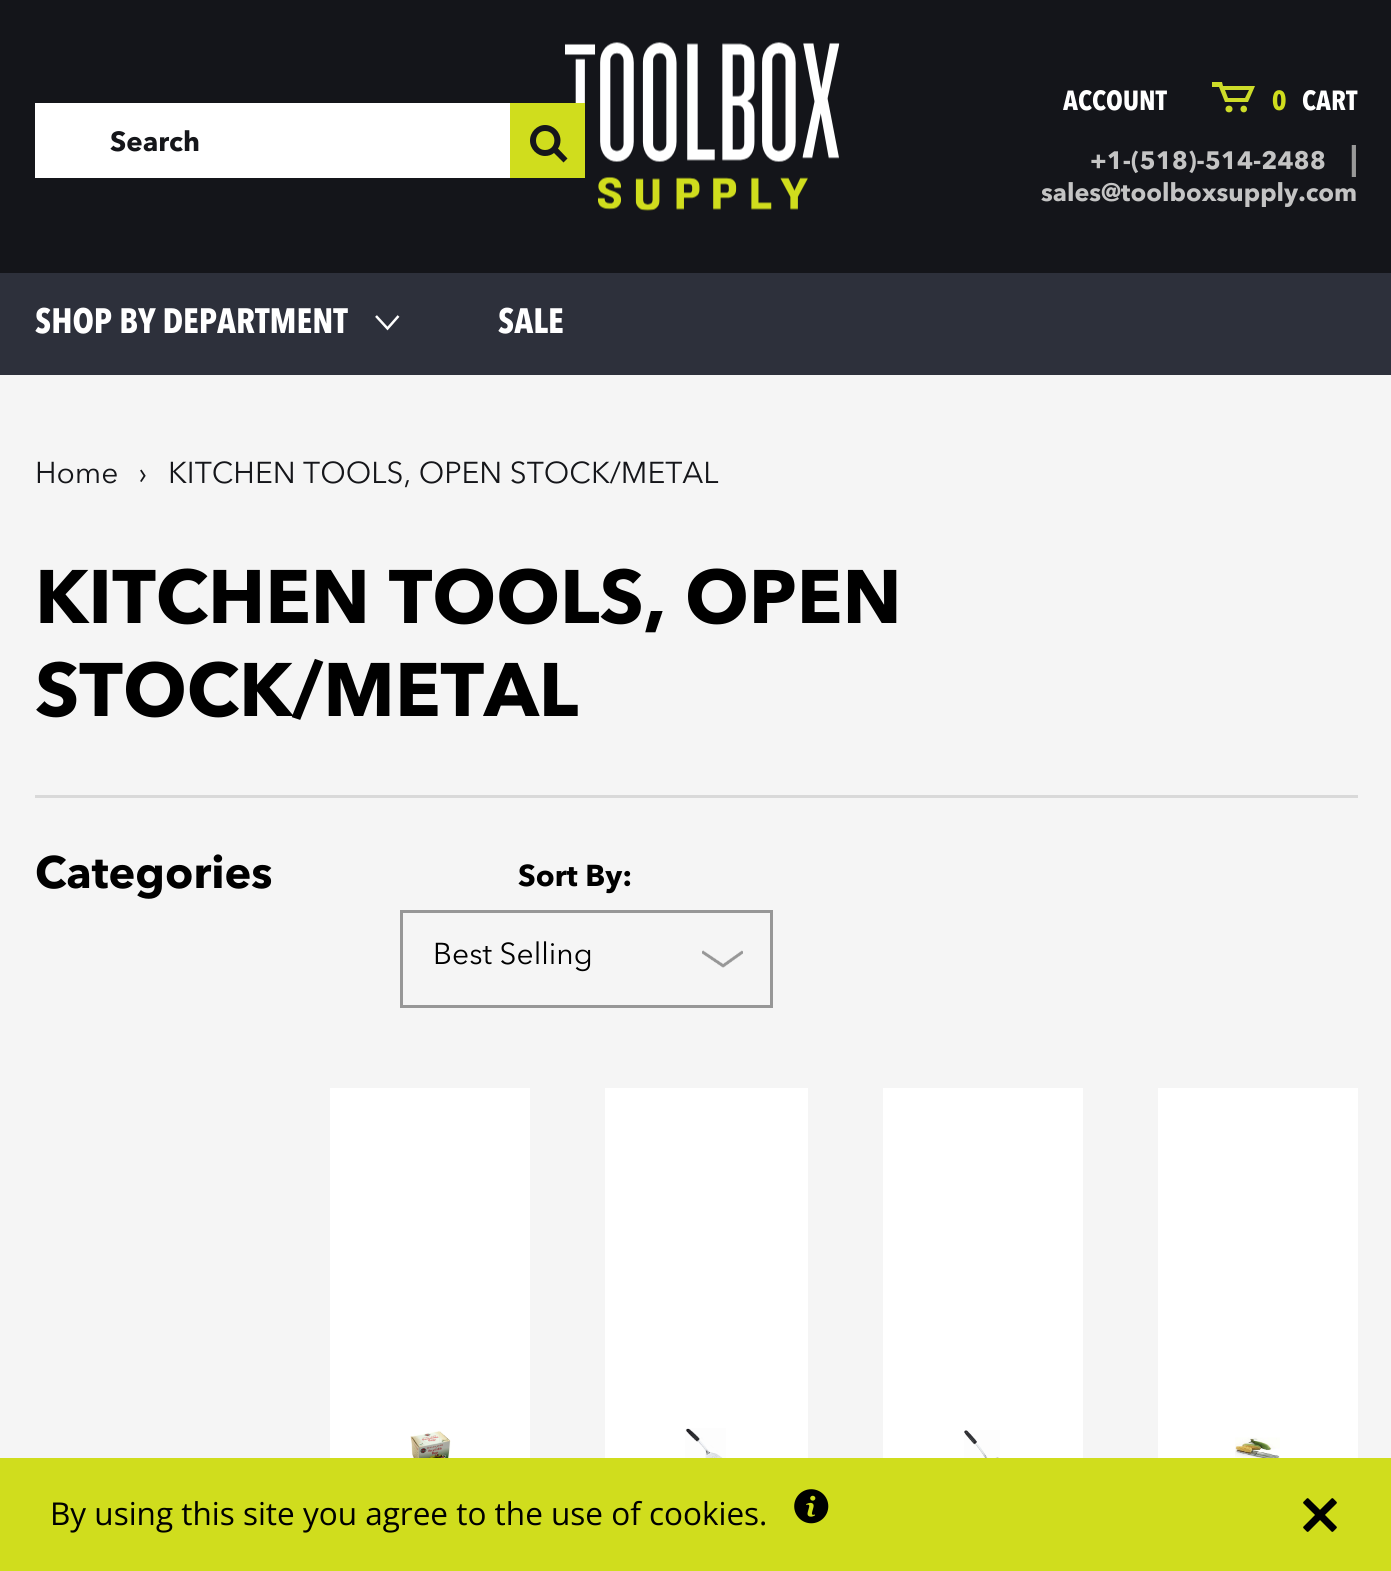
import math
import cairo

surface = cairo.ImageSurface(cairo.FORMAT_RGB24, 1391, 1571)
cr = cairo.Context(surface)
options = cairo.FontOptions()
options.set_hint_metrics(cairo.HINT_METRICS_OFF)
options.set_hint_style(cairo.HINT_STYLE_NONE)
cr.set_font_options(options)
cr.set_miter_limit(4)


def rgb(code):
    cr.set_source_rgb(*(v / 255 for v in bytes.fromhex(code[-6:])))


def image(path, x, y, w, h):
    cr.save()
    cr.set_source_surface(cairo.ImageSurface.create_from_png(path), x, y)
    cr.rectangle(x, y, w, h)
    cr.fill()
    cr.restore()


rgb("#f5f5f5")
cr.paint()
rgb("#14151a")
cr.rectangle(0, 0, 1391, 273)
cr.fill()
rgb("#ffffff")
cr.rectangle(35, 103, 475, 75)
cr.fill()
image("img/1.png", 565, 42, 275, 169)
rgb("#d0dd1d")
cr.rectangle(510, 103, 75, 75)
cr.fill()
rgb("#15161b")
cr.set_fill_rule(cairo.FILL_RULE_EVEN_ODD)
cr.new_path()
cr.move_to(567.5, 158.5)
cr.line_to(563.5, 162.5)
cr.line_to(554, 153)
cr.curve_to(551.5, 155, 548.5, 156, 545, 156)
cr.curve_to(537, 156, 530, 149, 530, 140.5)
cr.curve_to(530, 132, 537, 125, 545, 125)
cr.curve_to(553.5, 125, 560.5, 132, 560.5, 140.5)
cr.curve_to(560.5, 143.5, 559.5, 146.5, 558, 148.5)
cr.close_path()
cr.move_to(545, 150)
cr.curve_to(557.5, 150, 557.5, 131, 545, 131)
cr.curve_to(533, 131, 533, 150, 545, 150)
cr.close_path()
cr.fill()
rgb("#cddc29")
cr.new_path()
cr.move_to(1212, 82)
cr.line_to(1222, 82)
cr.line_to(1223, 86)
cr.line_to(1255, 86)
cr.line_to(1248, 102)
cr.line_to(1225, 102)
cr.line_to(1219, 87)
cr.line_to(1212, 87)
cr.close_path()
cr.move_to(1225, 90)
cr.line_to(1228, 98)
cr.line_to(1245, 98)
cr.line_to(1249, 90)
cr.close_path()
cr.fill()
cr.set_fill_rule(cairo.FILL_RULE_WINDING)
cr.new_path()
cr.move_to(1225.5, 109)
cr.curve_to(1225.5, 113.5, 1232.5, 113.5, 1232.5, 109)
cr.curve_to(1232.5, 104.5, 1225.5, 104.5, 1225.5, 109)
cr.close_path()
cr.move_to(1240.5, 109)
cr.curve_to(1240.5, 113.5, 1247, 113.5, 1247, 109)
cr.curve_to(1247, 104.5, 1240.5, 104.5, 1240.5, 109)
cr.close_path()
cr.fill()
rgb("#2d303b")
cr.rectangle(0, 273, 1391, 102)
cr.fill()
cr.new_path()
cr.move_to(376, 316)
cr.line_to(387.5, 328.5)
cr.line_to(398.5, 316)
cr.move_to(376, 316)
cr.line_to(387.5, 328.5)
cr.line_to(398.5, 316)
rgb("#ffffff")
cr.set_line_width(2.5)
cr.stroke()
rgb("#d9d9d9")
cr.rectangle(35, 795, 1323, 3)
cr.fill()
image("img/2.png", 702, 950, 41, 18)
cr.rectangle(401.5, 911.5, 370, 95)
rgb("#979797")
cr.set_line_width(3)
cr.stroke()
rgb("#ffffff")
cr.rectangle(330, 1088, 200, 370)
cr.fill()
image("img/3.png", 410, 1431, 41, 27)
cr.rectangle(605, 1088, 203, 370)
cr.fill()
image("img/4.png", 685, 1428, 41, 30)
cr.rectangle(883, 1088, 200, 370)
cr.fill()
image("img/5.png", 964, 1430, 36, 28)
cr.rectangle(1158, 1088, 200, 370)
cr.fill()
image("img/6.png", 1235, 1437, 45, 21)
rgb("#d0dd1d")
cr.rectangle(0, 1458, 1391, 113)
cr.fill()
image("img/7.png", 794, 1489, 35, 35)
image("img/8.png", 1303, 1498, 34, 34)
cr.select_font_face("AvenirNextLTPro")
cr.set_font_size(27.5)
rgb("#15161a")
cr.move_to(110, 151)
cr.show_text("Search")
cr.select_font_face("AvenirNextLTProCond")
rgb("#ffffff")
cr.move_to(1063, 110)
cr.show_text("ACCOUNT")
rgb("#d0dd1d")
cr.move_to(1272, 110)
cr.show_text("0")
rgb("#ffffff")
cr.move_to(1302, 110)
cr.show_text("CART")
cr.select_font_face("AvenirNextLTPro")
cr.set_font_size(25)
rgb("#c4c4c4")
cr.move_to(1090, 169)
cr.show_text("+1-(518)-514-2488")
cr.set_font_size(32)
rgb("#999999")
cr.move_to(1350, 169)
cr.show_text("|")
cr.set_font_size(25)
rgb("#c4c4c4")
cr.move_to(1041, 201)
cr.show_text("sales@toolboxsupply.com")
cr.select_font_face("AvenirNextLTProCond")
cr.set_font_size(35)
rgb("#ffffff")
cr.move_to(35, 333)
cr.show_text("SHOP BY DEPARTMENT")
cr.move_to(498, 333)
cr.show_text("SALE")
cr.select_font_face("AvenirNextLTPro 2")
cr.set_font_size(30)
rgb("#15161a")
for x, y, s in [
    (35, 483, "Home"),
    (138, 483, "›"),
    (168, 483, "KITCHEN TOOLS, OPEN STOCK/METAL"),
]:
    cr.move_to(x, y)
    cr.show_text(s)
cr.select_font_face("AvenirNextLTPro")
cr.set_font_size(75)
rgb("#000000")
cr.move_to(35, 623)
cr.show_text("KITCHEN TOOLS, OPEN")
cr.move_to(35, 716)
cr.show_text("STOCK/METAL")
cr.set_font_size(45)
cr.move_to(35, 888)
cr.show_text("Categories")
cr.set_font_size(30)
cr.move_to(518, 886)
cr.show_text("Sort By:")
cr.select_font_face("AvenirNextLTPro 2")
cr.move_to(433, 964)
cr.show_text("Best Selling")
cr.select_font_face("Open Sans")
cr.set_font_size(31.5)
cr.move_to(50, 1525)
cr.show_text("By using this site you agree to the use of cookies.")
surface.write_to_png("page.png")
